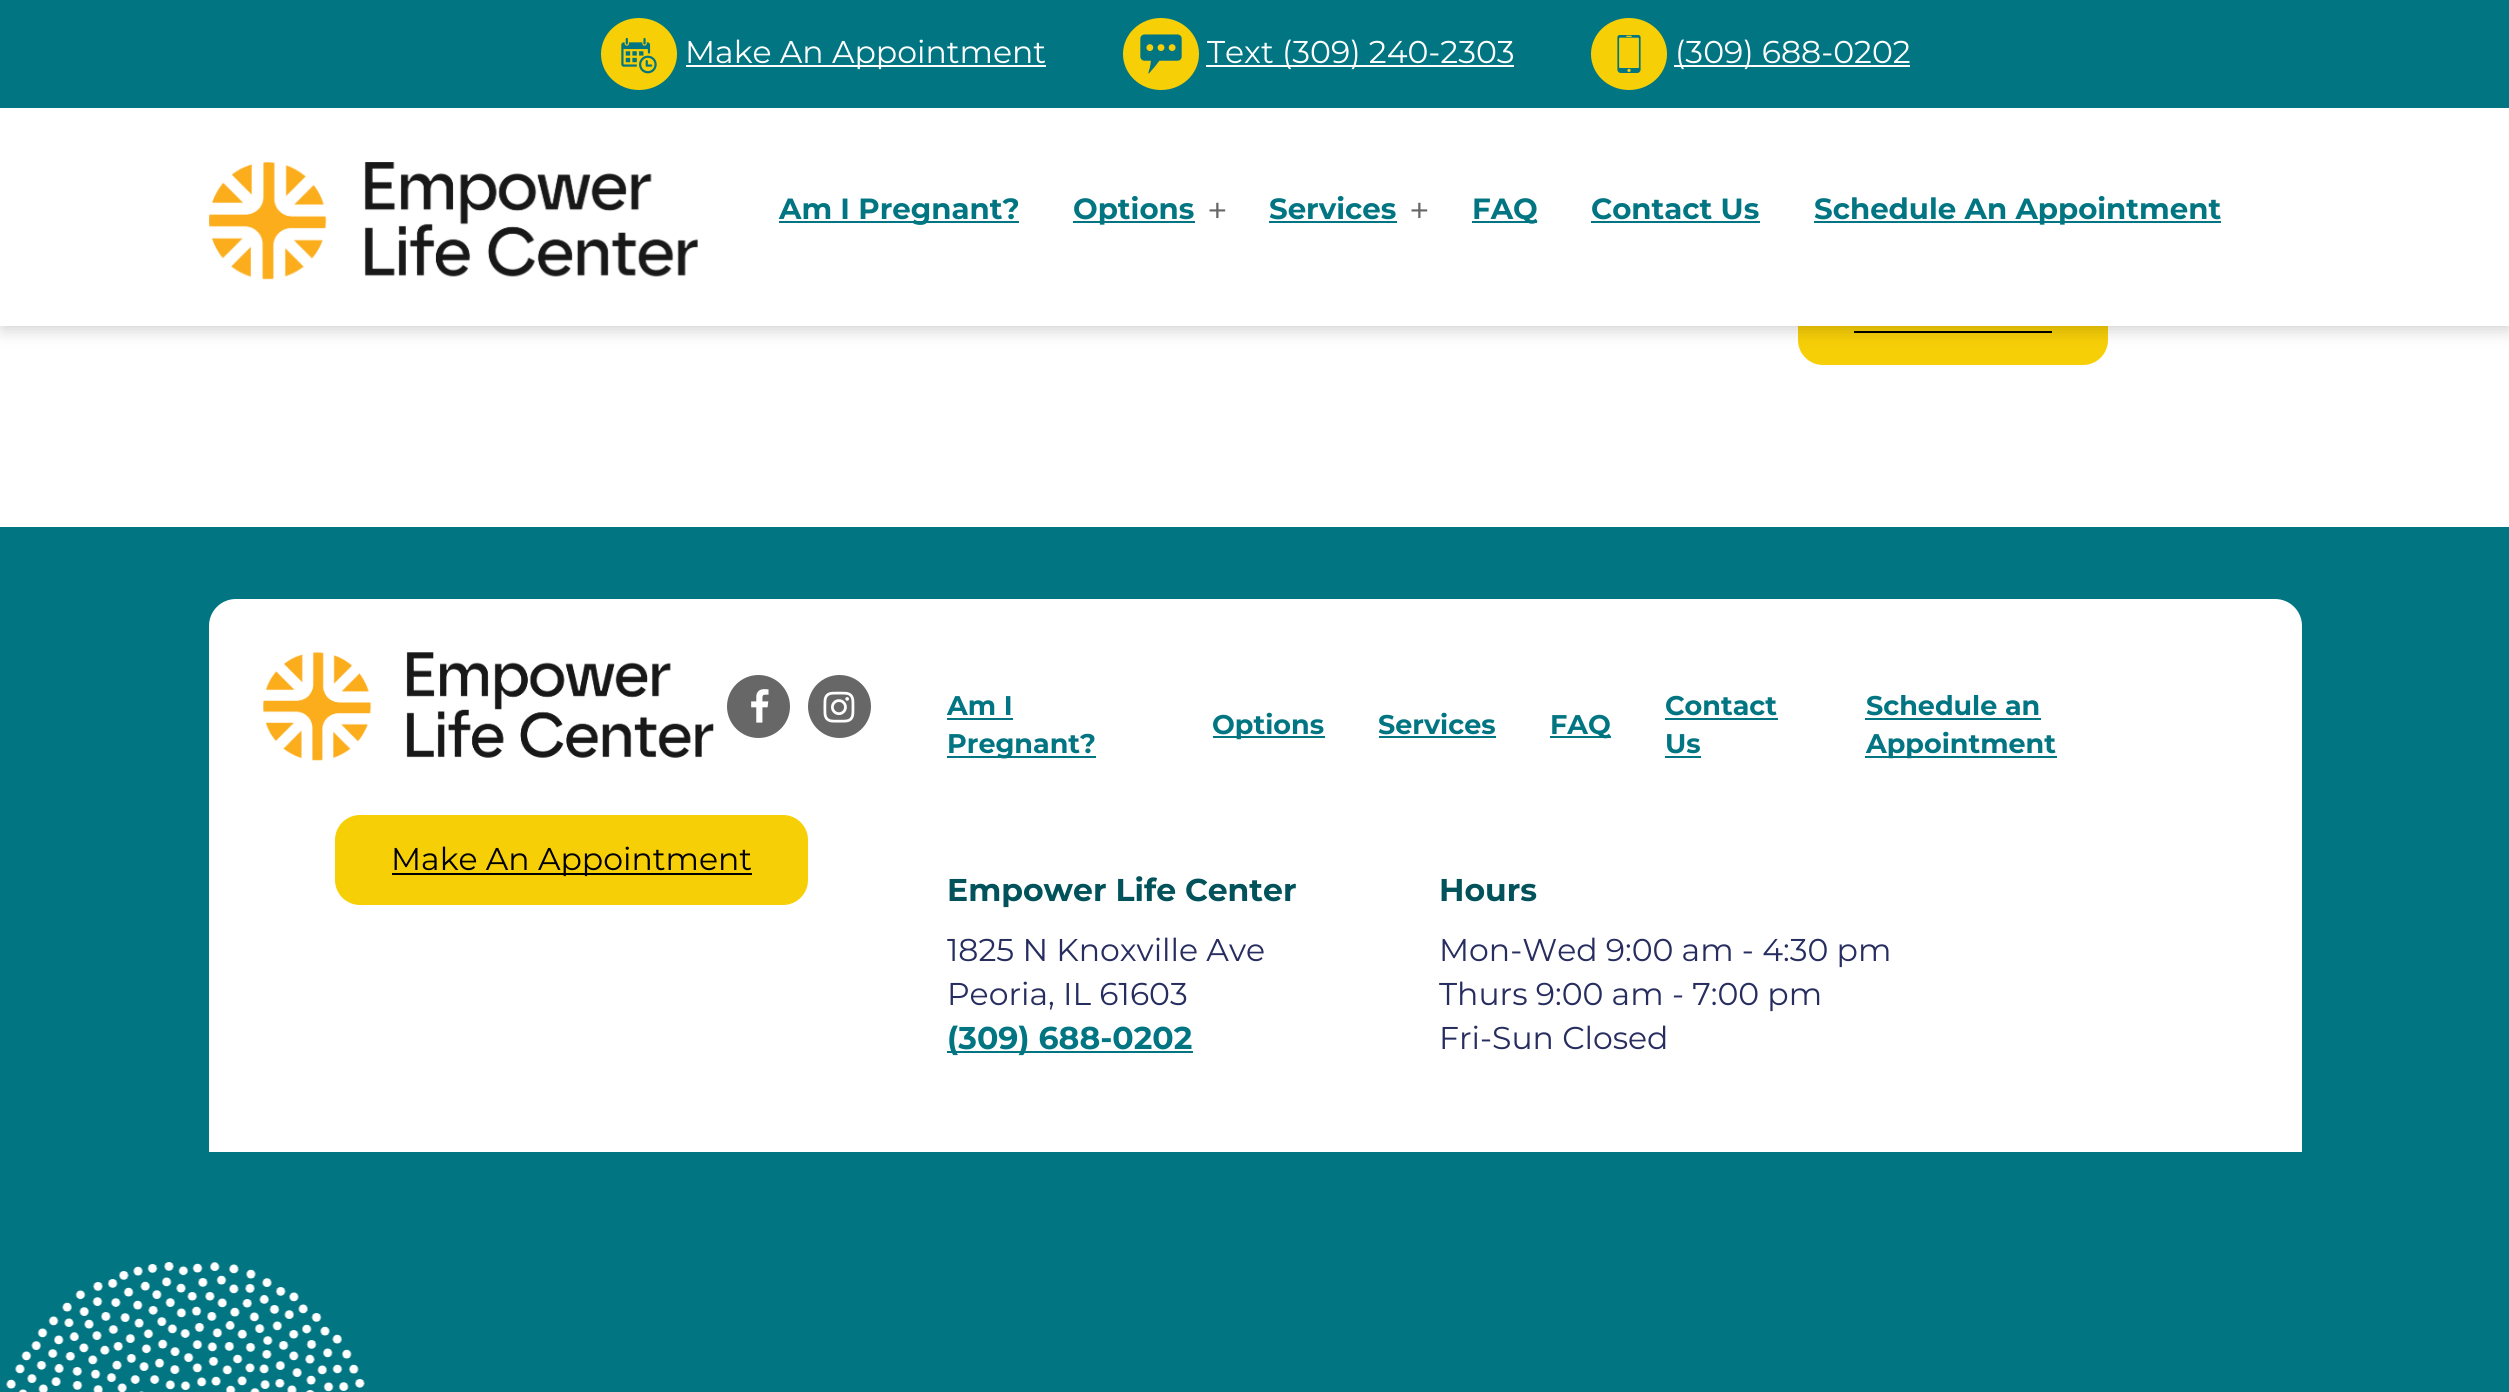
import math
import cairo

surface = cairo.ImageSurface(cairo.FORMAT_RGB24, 2509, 1392)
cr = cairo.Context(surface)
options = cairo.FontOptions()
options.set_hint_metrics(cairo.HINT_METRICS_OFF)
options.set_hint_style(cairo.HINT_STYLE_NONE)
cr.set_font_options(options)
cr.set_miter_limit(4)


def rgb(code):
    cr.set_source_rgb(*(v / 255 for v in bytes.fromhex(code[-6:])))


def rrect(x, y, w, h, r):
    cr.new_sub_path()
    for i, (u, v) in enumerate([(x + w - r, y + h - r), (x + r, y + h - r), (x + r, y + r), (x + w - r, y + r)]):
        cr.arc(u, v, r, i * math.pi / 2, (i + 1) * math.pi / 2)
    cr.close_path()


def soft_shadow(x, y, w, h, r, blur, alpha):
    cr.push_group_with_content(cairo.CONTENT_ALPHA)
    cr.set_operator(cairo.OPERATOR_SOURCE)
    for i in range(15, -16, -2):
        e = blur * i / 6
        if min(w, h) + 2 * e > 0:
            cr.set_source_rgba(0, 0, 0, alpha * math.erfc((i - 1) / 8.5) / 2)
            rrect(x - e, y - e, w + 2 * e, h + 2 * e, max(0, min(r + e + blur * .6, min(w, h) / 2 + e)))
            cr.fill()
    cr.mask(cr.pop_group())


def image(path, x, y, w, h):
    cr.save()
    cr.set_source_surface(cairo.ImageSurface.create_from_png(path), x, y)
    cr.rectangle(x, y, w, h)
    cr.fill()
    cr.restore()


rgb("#ffffff")
cr.paint()
rgb("#f7cf07")
rrect(1798, 272, 310, 93, 25)
cr.fill()
rgb("#000000")
cr.rectangle(1854, 331, 198, 2)
cr.fill()
rgb("#000000")
soft_shadow(2, 7, 2507, 322, 0, 9, 0.2)
rgb("#ffffff")
cr.rectangle(0, 108, 2509, 218)
cr.fill()
rgb("#017582")
cr.rectangle(0, 0, 2509, 108)
cr.fill()
rgb("#f7cf07")
cr.new_path()
cr.move_to(639, 18)
cr.curve_to(660, 18, 677, 34, 677, 54)
cr.curve_to(677, 74, 660, 90, 639, 90)
cr.curve_to(618, 90, 601, 74, 601, 54)
cr.curve_to(601, 34, 618, 18, 639, 18)
cr.close_path()
cr.fill()
image("img/1.png", 621, 37, 36, 37)
rgb("#ffffff")
cr.rectangle(686, 65, 360, 2)
cr.fill()
rgb("#f7cf07")
cr.new_path()
cr.move_to(1161, 18)
cr.curve_to(1182, 18, 1199, 34, 1199, 54)
cr.curve_to(1199, 74, 1182, 90, 1161, 90)
cr.curve_to(1140, 90, 1123, 74, 1123, 54)
cr.curve_to(1123, 34, 1140, 18, 1161, 18)
cr.close_path()
cr.fill()
image("img/2.png", 1140, 34, 42, 40)
rgb("#ffffff")
cr.rectangle(1206, 65, 308, 2)
cr.fill()
rgb("#f7cf07")
cr.new_path()
cr.move_to(1629, 18)
cr.curve_to(1650, 18, 1667, 34, 1667, 54)
cr.curve_to(1667, 74, 1650, 90, 1629, 90)
cr.curve_to(1608, 90, 1591, 74, 1591, 54)
cr.curve_to(1591, 34, 1608, 18, 1629, 18)
cr.close_path()
cr.fill()
image("img/3.png", 1617, 35, 24, 38)
rgb("#ffffff")
cr.rectangle(1674, 65, 236, 2)
cr.fill()
image("img/4.png", 209, 162, 489, 118)
for x, y, w, h, color in [
    (779, 221, 240, 2, "#017582"),
    (1073, 221, 122, 2, "#017582"),
    (1269, 221, 128, 2, "#017582"),
    (1472, 221, 65, 2, "#017582"),
    (1591, 221, 169, 2, "#017582"),
    (1814, 221, 407, 2, "#017582"),
    (0, 527, 2509, 865, "#017582"),
]:
    rgb(color)
    cr.rectangle(x, y, w, h)
    cr.fill()
rgb("#ffffff")
cr.new_path()
cr.move_to(236, 599)
cr.line_to(2275, 599)
cr.curve_to(2290, 599, 2302, 611, 2302, 626)
cr.line_to(2302, 1152)
cr.line_to(209, 1152)
cr.line_to(209, 626)
cr.curve_to(209, 611, 221, 599, 236, 599)
cr.close_path()
cr.fill()
image("img/5.png", 263, 652, 451, 109)
rgb("#676767")
cr.arc(758.5, 706.5, 31.5, 0, 2 * math.pi)
cr.fill()
image("img/6.png", 751, 689, 18, 34)
cr.arc(839.5, 706.5, 31.5, 0, 2 * math.pi)
cr.fill()
image("img/7.png", 823, 691, 32, 32)
rgb("#f7cf07")
rrect(335, 815, 473, 90, 25)
cr.fill()
for x, y, w, h, color in [
    (392, 873, 360, 2, "#000000"),
    (947, 718, 66, 2, "#017582"),
    (947, 756, 149, 2, "#017582"),
    (1213, 736, 112, 2, "#017582"),
    (1379, 736, 117, 2, "#017582"),
    (1550, 736, 61, 2, "#017582"),
    (1665, 718, 113, 2, "#017582"),
    (1665, 756, 36, 2, "#017582"),
    (1865, 718, 176, 2, "#017582"),
    (1865, 756, 192, 2, "#017582"),
    (947, 1051, 246, 2, "#017582"),
]:
    rgb(color)
    cr.rectangle(x, y, w, h)
    cr.fill()
image("img/8.png", 6, 1262, 359, 130)
cr.select_font_face("Montserrat")
cr.set_font_size(31.5)
rgb("#ffffff")
for x, y, s in [
    (685, 63, "Make An Appointment"),
    (1207, 63, "Text (309) 240-2303"),
    (1675, 63, "(309) 688-0202"),
]:
    cr.move_to(x, y)
    cr.show_text(s)
cr.select_font_face("Montserrat", cairo.FONT_SLANT_NORMAL, cairo.FONT_WEIGHT_BOLD)
cr.set_font_size(29.25)
rgb("#017582")
cr.move_to(779, 219)
cr.show_text("Am I Pregnant?")
cr.move_to(1073, 219)
cr.show_text("Options")
cr.select_font_face("Montserrat")
cr.set_font_size(36)
rgb("#676767")
cr.move_to(1207, 223)
cr.show_text("+")
cr.select_font_face("Montserrat", cairo.FONT_SLANT_NORMAL, cairo.FONT_WEIGHT_BOLD)
cr.set_font_size(29.25)
rgb("#017582")
cr.move_to(1269, 219)
cr.show_text("Services")
cr.select_font_face("Montserrat")
cr.set_font_size(36)
rgb("#676767")
cr.move_to(1409, 223)
cr.show_text("+")
cr.select_font_face("Montserrat", cairo.FONT_SLANT_NORMAL, cairo.FONT_WEIGHT_BOLD)
cr.set_font_size(29.25)
rgb("#017582")
for x, y, s in [
    (1472, 219, "FAQ"),
    (1591, 219, "Contact Us"),
    (1814, 219, "Schedule An Appointment"),
]:
    cr.move_to(x, y)
    cr.show_text(s)
cr.select_font_face("Montserrat")
cr.set_font_size(31.5)
rgb("#000000")
cr.move_to(391, 870)
cr.show_text("Make An Appointment")
cr.select_font_face("Montserrat", cairo.FONT_SLANT_NORMAL, cairo.FONT_WEIGHT_BOLD)
cr.set_font_size(27)
rgb("#017582")
for x, y, s in [
    (947, 715, "Am I"),
    (947, 753, "Pregnant?"),
    (1212, 734, "Options"),
    (1378, 734, "Services"),
    (1550, 734, "FAQ"),
    (1665, 715, "Contact"),
    (1665, 753, "Us"),
    (1866, 715, "Schedule an"),
    (1866, 753, "Appointment"),
]:
    cr.move_to(x, y)
    cr.show_text(s)
cr.set_font_size(31.5)
rgb("#01525b")
cr.move_to(947, 901)
cr.show_text("Empower Life Center")
cr.select_font_face("Montserrat")
rgb("#272d5f")
cr.move_to(947, 961)
cr.show_text("1825 N Knoxville Ave")
cr.move_to(947, 1005)
cr.show_text("Peoria, IL 61603")
cr.select_font_face("Montserrat", cairo.FONT_SLANT_NORMAL, cairo.FONT_WEIGHT_BOLD)
rgb("#017582")
cr.move_to(947, 1049)
cr.show_text("(309) 688-0202")
rgb("#01525b")
cr.move_to(1439, 901)
cr.show_text("Hours")
cr.select_font_face("Montserrat")
rgb("#272d5f")
for x, y, s in [
    (1439, 961, "Mon-Wed 9:00 am - 4:30 pm"),
    (1439, 1005, "Thurs 9:00 am - 7:00 pm"),
    (1439, 1049, "Fri-Sun Closed"),
]:
    cr.move_to(x, y)
    cr.show_text(s)
surface.write_to_png("page.png")
